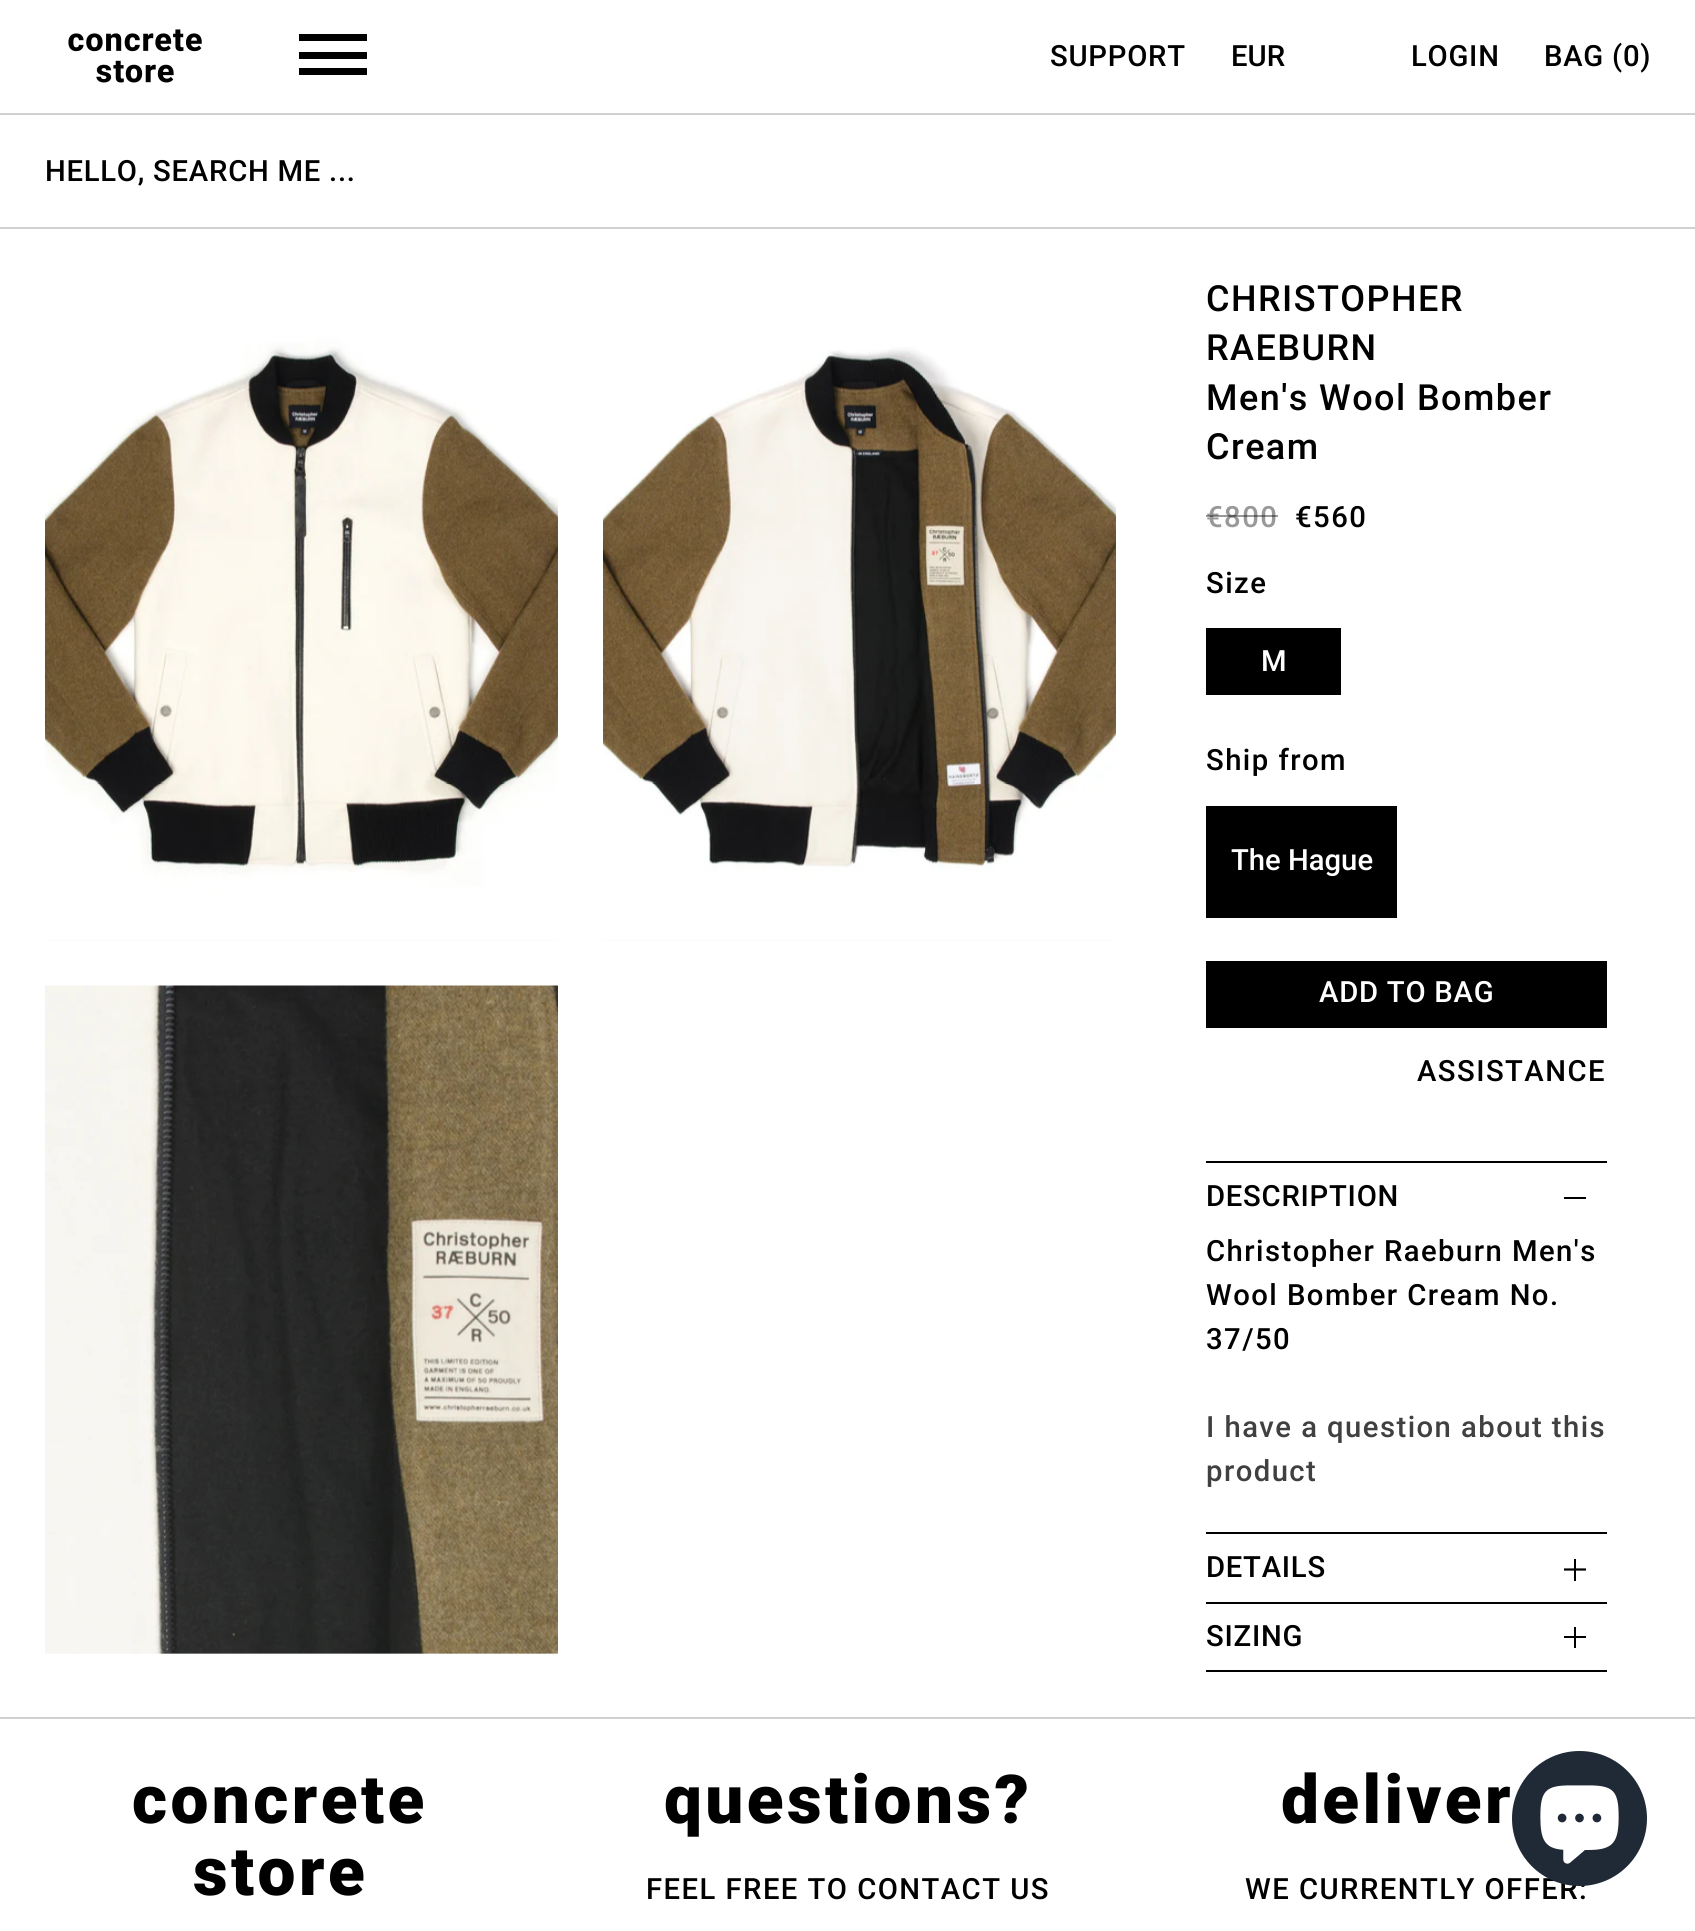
import math
import cairo

surface = cairo.ImageSurface(cairo.FORMAT_RGB24, 1695, 1931)
cr = cairo.Context(surface)
options = cairo.FontOptions()
options.set_hint_metrics(cairo.HINT_METRICS_OFF)
options.set_hint_style(cairo.HINT_STYLE_NONE)
cr.set_font_options(options)
cr.set_miter_limit(4)


def rgb(code):
    cr.set_source_rgb(*(v / 255 for v in bytes.fromhex(code[-6:])))


def tracked(x, y, s, letter, word):
    cr.move_to(x, y)
    for ch in s:
        cr.show_text(ch)
        cr.rel_move_to(letter + word * (ch == ' '), 0)


def image(path, x, y, w, h):
    cr.save()
    cr.set_source_surface(cairo.ImageSurface.create_from_png(path), x, y)
    cr.rectangle(x, y, w, h)
    cr.fill()
    cr.restore()


rgb("#ffffff")
cr.paint()
rgb("#d1d1d1")
cr.rectangle(0, 227, 1695, 2)
cr.fill()
image("img/1.png", 68, 29, 134, 54)
for x, y, w, h, color in [
    (299, 34, 68, 7, "#000000"),
    (299, 52, 68, 7, "#000000"),
    (299, 68, 68, 7, "#000000"),
    (0, 113, 1695, 2, "#d1d1d1"),
    (45, 940, 513, 1, "#f6f7f7"),
]:
    rgb(color)
    cr.rectangle(x, y, w, h)
    cr.fill()
image("img/2.png", 45, 275, 513, 666)
cr.rectangle(603, 940, 513, 1)
cr.fill()
image("img/3.png", 603, 275, 513, 666)
cr.rectangle(45, 1653, 513, 1)
cr.fill()
image("img/4.png", 45, 985, 513, 669)
for x, y, w, h, color in [
    (1206, 628, 135, 67, "#000000"),
    (1206, 806, 191, 112, "#000000"),
    (1206, 961, 401, 67, "#000000"),
    (1206, 1161, 401, 2, "#000000"),
    (1564, 1197, 22, 2, "#000000"),
    (1206, 1532, 401, 2, "#000000"),
]:
    rgb(color)
    cr.rectangle(x, y, w, h)
    cr.fill()
cr.new_path()
cr.move_to(1564, 1569.5)
cr.line_to(1586, 1569.5)
cr.set_line_width(2.2)
cr.stroke()
for x, y, w, h, color in [
    (1574, 1559, 2, 22, "#000000"),
    (1206, 1602, 401, 2, "#000000"),
    (1206, 1670, 401, 2, "#000000"),
    (1564, 1636, 22, 2, "#000000"),
    (1574, 1627, 2, 21, "#000000"),
    (0, 1717, 1695, 2, "#d1d1d1"),
]:
    rgb(color)
    cr.rectangle(x, y, w, h)
    cr.fill()
cr.select_font_face("Roboto Medium")
cr.set_font_size(29.25)
rgb("#000000")
tracked(1050, 66, "SUPPORT", 0.75, 0)
cr.move_to(1231, 66)
cr.show_text("EUR")
for x, y, s in [
    (1411, 66, "LOGIN"),
    (1544, 66, "BAG (0)"),
    (45, 181, "HELLO, SEARCH ME ..."),
]:
    tracked(x, y, s, 0.75, 0)
cr.set_font_size(36)
for x, y, s in [
    (1206, 311, "CHRISTOPHER"),
    (1206, 360, "RAEBURN"),
    (1206, 410, "Men's Wool Bomber"),
    (1206, 459, "Cream"),
]:
    tracked(x, y, s, 1.45, 0)
cr.set_font_size(29.25)
rgb("#999999")
tracked(1206, 527, "€800", 1.45, 0)
cr.set_source_rgba(0, 0, 0, 0.4)
cr.rectangle(1206, 515, 72, 2)
cr.fill()
rgb("#000000")
tracked(1295, 527, "€560", 1.45, 0)
tracked(1206, 593, "Size", 1.45, 0)
rgb("#ffffff")
cr.move_to(1261, 671)
cr.show_text("M")
rgb("#000000")
tracked(1206, 770, "Ship from", 1.45, 0)
rgb("#ffffff")
cr.move_to(1231, 870)
cr.show_text("The Hague")
tracked(1319, 1002, "ADD TO BAG", 0.75, 0)
rgb("#000000")
tracked(1417, 1081, "ASSISTANCE", 1.45, 0)
tracked(1206, 1206, "DESCRIPTION", 0.75, 0)
for x, y, s in [
    (1206, 1261, "Christopher Raeburn Men's"),
    (1206, 1305, "Wool Bomber Cream No."),
    (1206, 1349, "37/50"),
]:
    tracked(x, y, s, 1.45, 0)
rgb("#404040")
tracked(1206, 1437, "I have a question about this", 1.45, 0)
tracked(1206, 1481, "product", 1.45, 0)
rgb("#000000")
tracked(1206, 1577, "DETAILS", 0.75, 0)
tracked(1206, 1646, "SIZING", 0.75, 0)
cr.select_font_face("Roboto Black")
cr.set_font_size(67.5)
for x, y, s in [
    (132, 1823, "concrete"),
    (193, 1895, "store"),
    (664, 1823, "questions?"),
]:
    tracked(x, y, s, 3.4, 0)
cr.select_font_face("Roboto Medium")
cr.set_font_size(29.25)
tracked(646, 1899, "FEEL FREE TO CONTACT US", 1.45, 0)
cr.select_font_face("Roboto Black")
cr.set_font_size(67.5)
tracked(1281, 1823, "deliver", 3.4, 0)
cr.select_font_face("Roboto Medium")
cr.set_font_size(29.25)
tracked(1245, 1899, "WE CURRENTLY OFFER:", 1.45, 0)
rgb("#202a36")
cr.new_path()
cr.arc(1579.5, 1818.5, 67.5, 0, 2 * math.pi)
cr.fill()
image("img/5.png", 1540, 1785, 79, 79)
surface.write_to_png("page.png")
